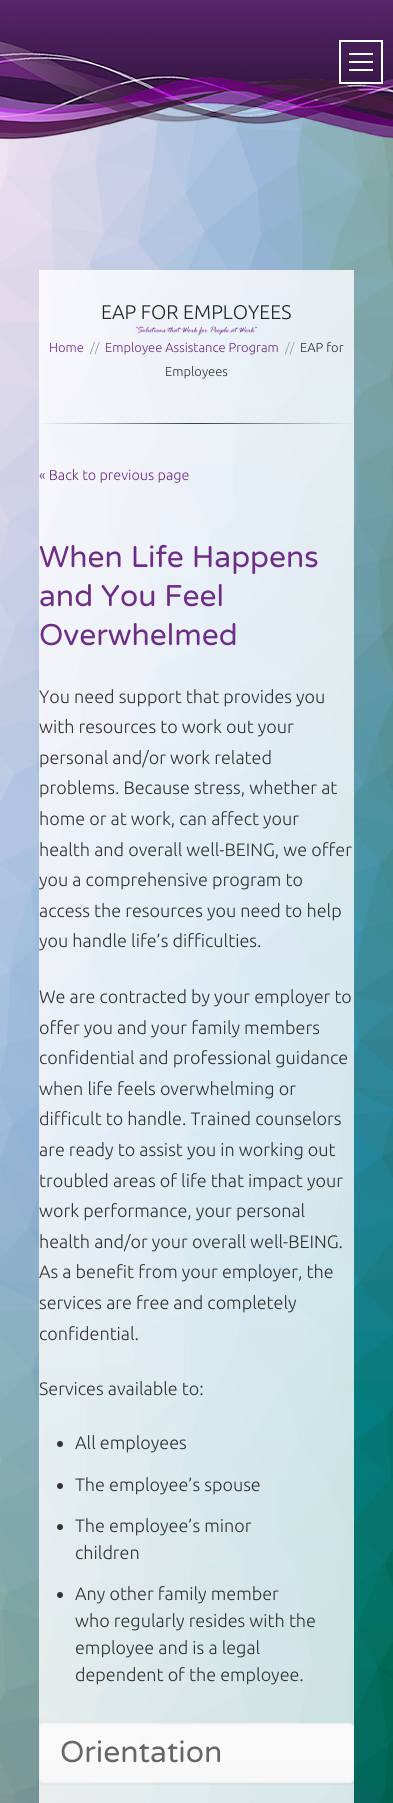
import math
import cairo

surface = cairo.ImageSurface(cairo.FORMAT_RGB24, 393, 1803)
cr = cairo.Context(surface)
options = cairo.FontOptions()
options.set_hint_metrics(cairo.HINT_METRICS_OFF)
options.set_hint_style(cairo.HINT_STYLE_NONE)
cr.set_font_options(options)
cr.set_miter_limit(4)


def rgb(code):
    cr.set_source_rgb(*(v / 255 for v in bytes.fromhex(code[-6:])))


def rrect(x, y, w, h, r):
    cr.new_sub_path()
    for i, (u, v) in enumerate([(x + w - r, y + h - r), (x + r, y + h - r), (x + r, y + r), (x + w - r, y + r)]):
        cr.arc(u, v, r, i * math.pi / 2, (i + 1) * math.pi / 2)
    cr.close_path()


def image(path, x, y, w, h):
    cr.save()
    cr.set_source_surface(cairo.ImageSurface.create_from_png(path), x, y)
    cr.rectangle(x, y, w, h)
    cr.fill()
    cr.restore()


rgb("#ffffff")
cr.paint()
image("img/1.png", 2, 86, 390, 1717)
image("img/2.png", 0, 85, 393, 1718)
image("img/3.png", 0, 0, 393, 140)
rgb("#ffffff")
cr.rectangle(349, 53, 24, 2)
cr.fill()
cr.rectangle(349, 69, 24, 2)
cr.fill()
cr.rectangle(340, 41, 42, 42)
cr.stroke()
cr.rectangle(349, 61, 24, 2)
cr.fill()
cr.set_source_rgba(1, 1, 1, 0.8)
cr.rectangle(39, 270, 315, 1533)
cr.fill()
image("img/4.png", 135, 326, 123, 10)
gradient = cairo.LinearGradient(39, 424, 354, 424)
gradient.add_color_stop_rgba(0, 0, 0, 0, 0)
gradient.add_color_stop_rgba(0.5, 0, 0, 0, 0.75)
gradient.add_color_stop_rgba(1, 0, 0, 0, 0)
cr.set_source(gradient)
cr.rectangle(39, 423, 315, 1)
cr.fill()
rgb("#333333")
cr.arc(60, 1444, 3, 0, 2 * math.pi)
cr.fill()
cr.arc(60, 1486, 3, 0, 2 * math.pi)
cr.fill()
cr.arc(60, 1527, 3, 0, 2 * math.pi)
cr.fill()
cr.arc(60, 1595, 3, 0, 2 * math.pi)
cr.fill()
rgb("#f8f8f8")
rrect(39, 1723, 315, 60, 5)
cr.fill()
cr.save()
rrect(39, 1723, 315, 60, 5)
cr.clip()
gradient = cairo.LinearGradient(197, 1724, 197, 1782)
gradient.add_color_stop_rgba(0, 1, 1, 1, 0.2)
gradient.add_color_stop_rgba(1, 1, 1, 1, 0.01)
cr.set_source(gradient)
cr.rectangle(39, 1724, 315, 54)
cr.fill()
cr.restore()
rrect(39.5, 1723.5, 314, 59, 4.5)
rgb("#f0f0f0")
cr.set_line_width(1)
cr.stroke()
gradient = cairo.LinearGradient(196, 1785, 197, 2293)
gradient.add_color_stop_rgba(0, 1, 1, 1, 0.2)
gradient.add_color_stop_rgba(1, 1, 1, 1, 0.01)
cr.set_source(gradient)
cr.rectangle(39, 1785, 315, 18)
cr.fill()
cr.select_font_face("Ubuntu Light")
cr.set_font_size(19.75)
rgb("#252525")
cr.move_to(101, 319)
cr.show_text("EAP FOR EMPLOYEES")
cr.set_font_size(13)
rgb("#6d2f86")
cr.move_to(49, 352)
cr.show_text("Home")
rgb("#999999")
cr.move_to(90, 352)
cr.show_text("//")
rgb("#6d2f86")
cr.move_to(105, 352)
cr.show_text("Employee Assistance Program")
rgb("#999999")
cr.move_to(285, 352)
cr.show_text("//")
rgb("#333333")
cr.move_to(300, 352)
cr.show_text("EAP for")
cr.move_to(165, 376)
cr.show_text("Employees")
cr.set_font_size(14.4)
rgb("#6d2f86")
cr.move_to(39, 480)
cr.show_text("« Back to previous page")
cr.select_font_face("Varela Round")
cr.set_font_size(30)
for x, y, s in [
    (39, 567, "When Life Happens"),
    (39, 606, "and You Feel"),
    (39, 645, "Overwhelmed"),
]:
    cr.move_to(x, y)
    cr.show_text(s)
cr.select_font_face("Ubuntu Light")
cr.set_font_size(18)
rgb("#333333")
for x, y, s in [
    (39, 703, "You need support that provides you"),
    (39, 733, "with resources to work out your"),
    (39, 764, "personal and/or work related"),
    (39, 794, "problems. Because stress, whether at"),
    (39, 825, "home or at work, can affect your"),
    (39, 856, "health and overall well-BEING, we offer"),
    (39, 886, "you a comprehensive program to"),
    (39, 917, "access the resources you need to help"),
    (39, 947, "you handle life’s difficulties."),
    (39, 1003, "We are contracted by your employer to"),
    (39, 1034, "offer you and your family members"),
    (39, 1064, "confidential and professional guidance"),
    (39, 1095, "when life feels overwhelming or"),
    (39, 1125, "difficult to handle. Trained counselors"),
    (39, 1156, "are ready to assist you in working out"),
    (39, 1187, "troubled areas of life that impact your"),
    (39, 1217, "work performance, your personal"),
    (39, 1248, "health and/or your overall well-BEING."),
    (39, 1278, "As a benefit from your employer, the"),
    (39, 1309, "services are free and completely"),
    (39, 1340, "confidential."),
    (39, 1395, "Services available to:"),
    (75, 1449, "All employees"),
    (75, 1491, "The employee’s spouse"),
    (75, 1532, "The employee’s minor"),
    (75, 1559, "children"),
    (75, 1600, "Any other family member"),
    (75, 1627, "who regularly resides with the"),
    (75, 1654, "employee and is a legal"),
    (75, 1681, "dependent of the employee."),
]:
    cr.move_to(x, y)
    cr.show_text(s)
cr.select_font_face("Varela Round")
cr.set_font_size(30)
rgb("#666666")
cr.move_to(60, 1762)
cr.show_text("Orientation")
surface.write_to_png("page.png")
